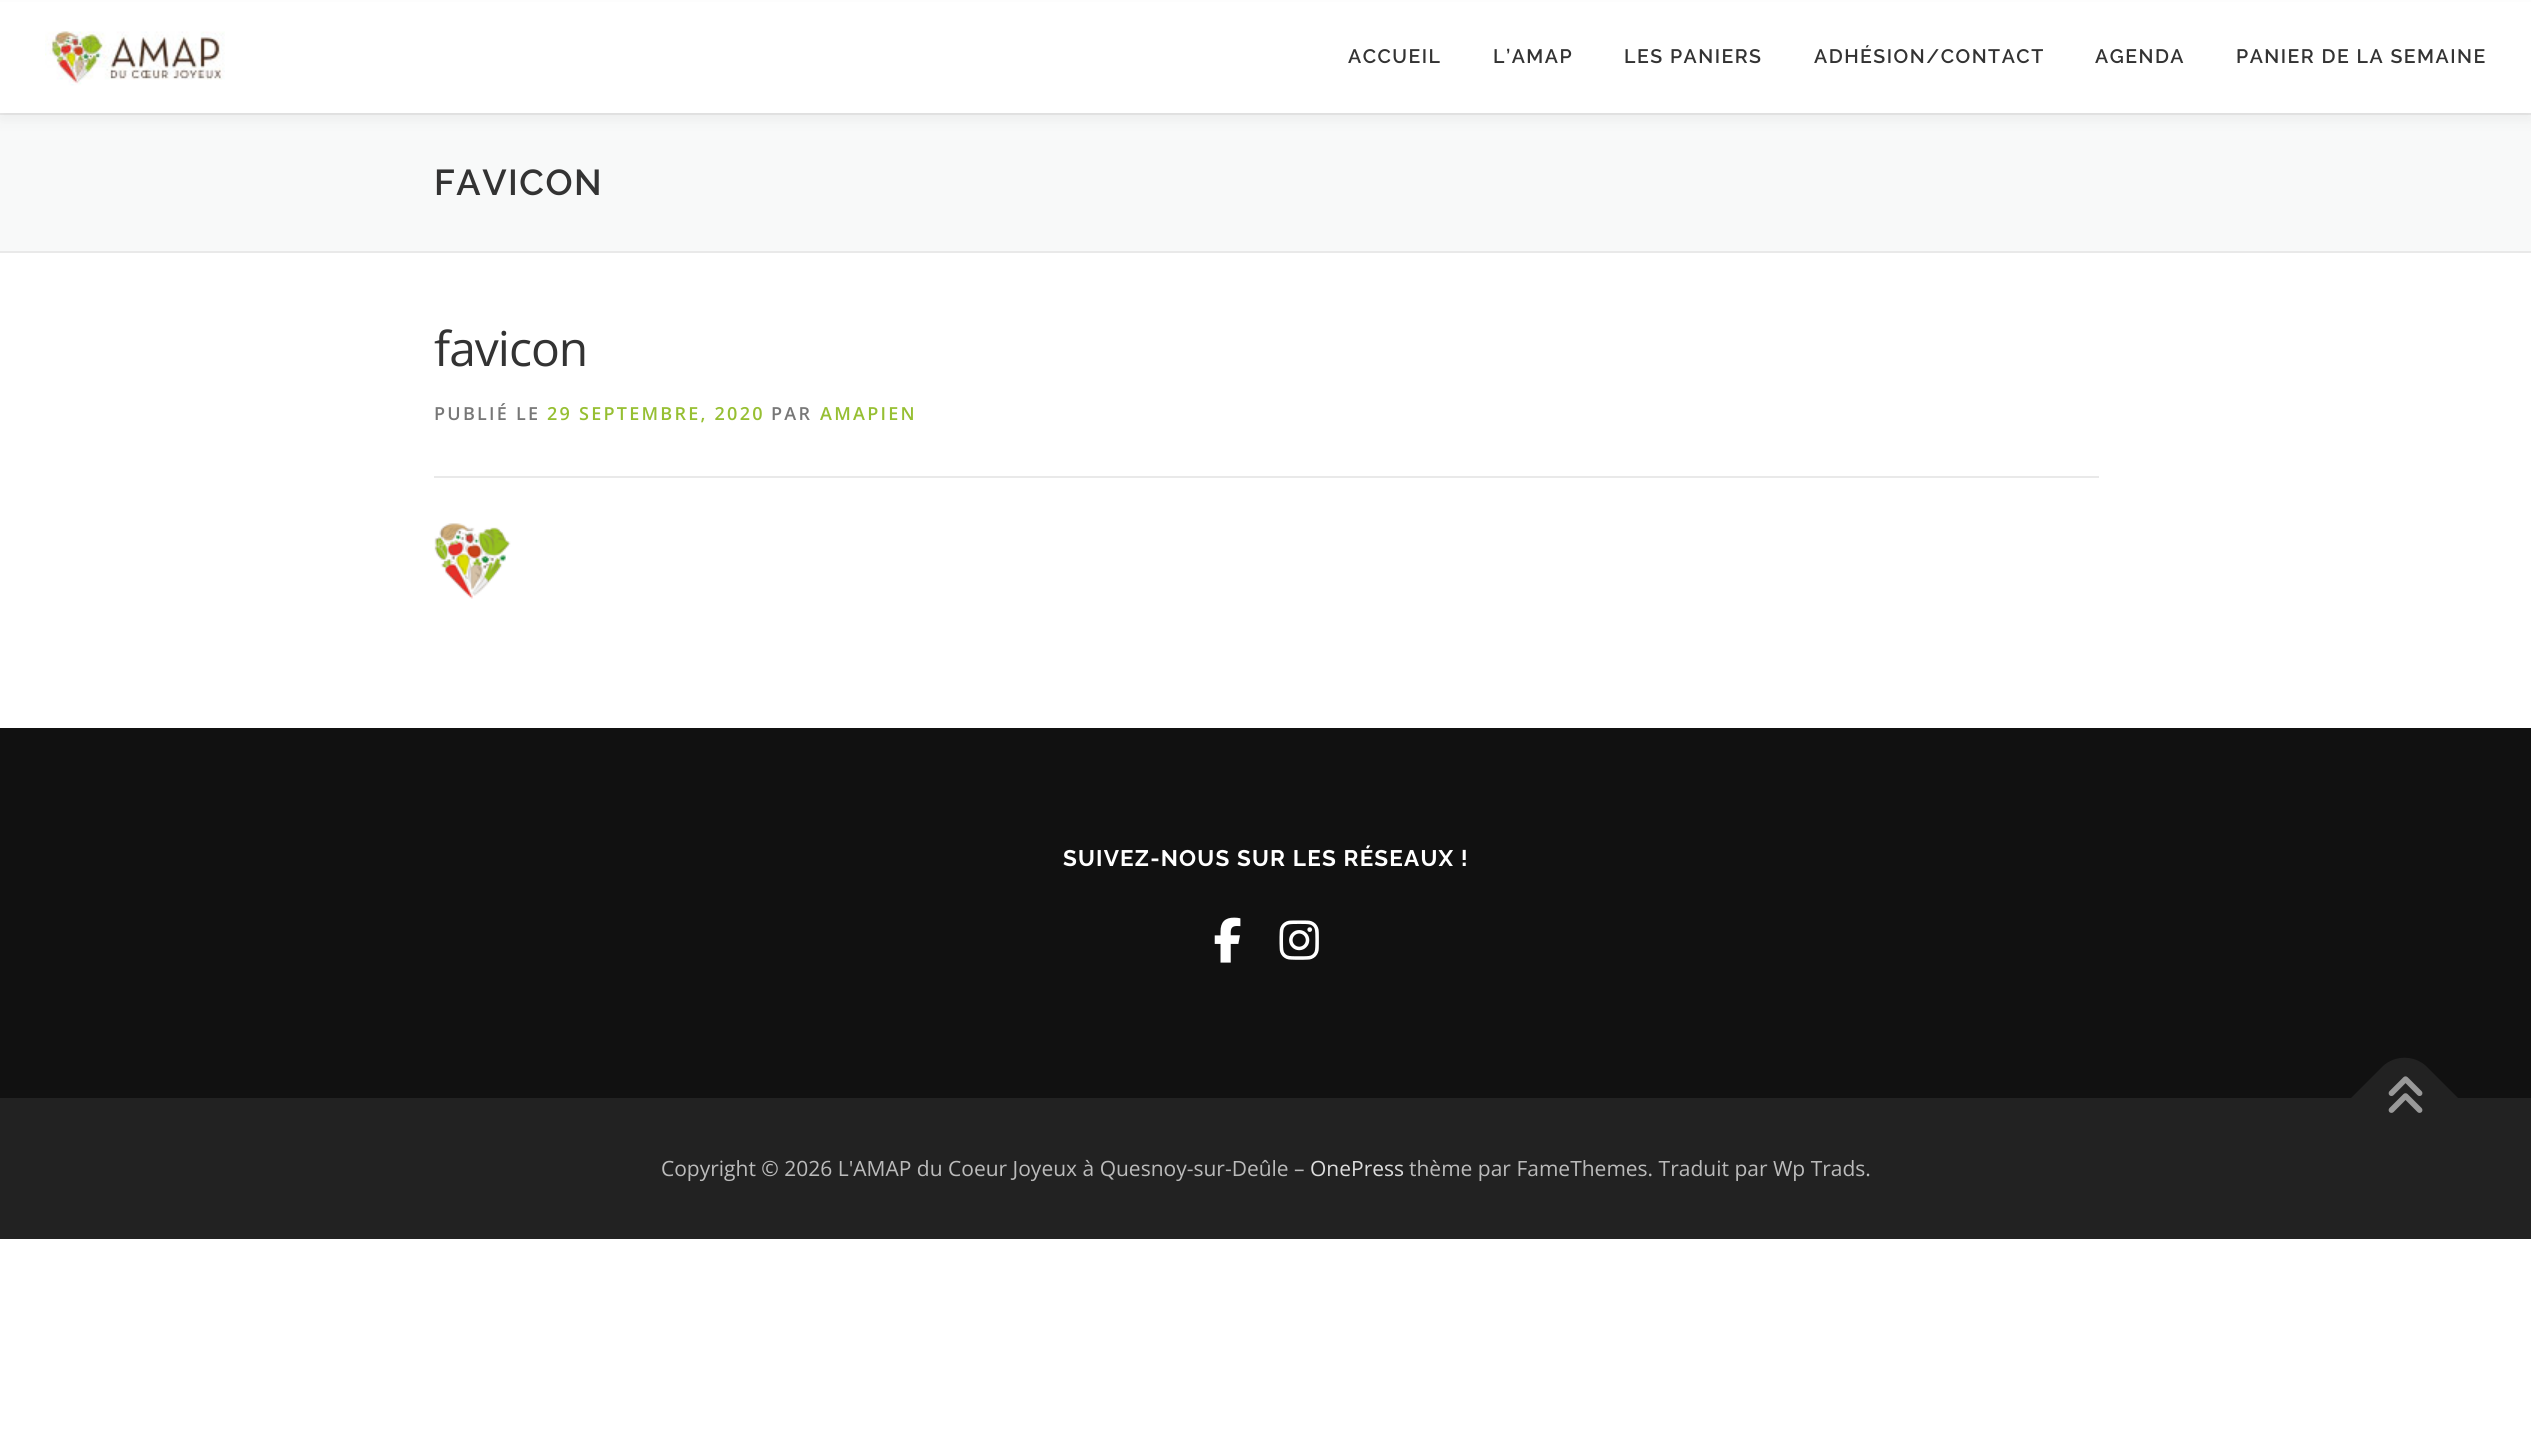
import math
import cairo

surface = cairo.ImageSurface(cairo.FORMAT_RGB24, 2531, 1440)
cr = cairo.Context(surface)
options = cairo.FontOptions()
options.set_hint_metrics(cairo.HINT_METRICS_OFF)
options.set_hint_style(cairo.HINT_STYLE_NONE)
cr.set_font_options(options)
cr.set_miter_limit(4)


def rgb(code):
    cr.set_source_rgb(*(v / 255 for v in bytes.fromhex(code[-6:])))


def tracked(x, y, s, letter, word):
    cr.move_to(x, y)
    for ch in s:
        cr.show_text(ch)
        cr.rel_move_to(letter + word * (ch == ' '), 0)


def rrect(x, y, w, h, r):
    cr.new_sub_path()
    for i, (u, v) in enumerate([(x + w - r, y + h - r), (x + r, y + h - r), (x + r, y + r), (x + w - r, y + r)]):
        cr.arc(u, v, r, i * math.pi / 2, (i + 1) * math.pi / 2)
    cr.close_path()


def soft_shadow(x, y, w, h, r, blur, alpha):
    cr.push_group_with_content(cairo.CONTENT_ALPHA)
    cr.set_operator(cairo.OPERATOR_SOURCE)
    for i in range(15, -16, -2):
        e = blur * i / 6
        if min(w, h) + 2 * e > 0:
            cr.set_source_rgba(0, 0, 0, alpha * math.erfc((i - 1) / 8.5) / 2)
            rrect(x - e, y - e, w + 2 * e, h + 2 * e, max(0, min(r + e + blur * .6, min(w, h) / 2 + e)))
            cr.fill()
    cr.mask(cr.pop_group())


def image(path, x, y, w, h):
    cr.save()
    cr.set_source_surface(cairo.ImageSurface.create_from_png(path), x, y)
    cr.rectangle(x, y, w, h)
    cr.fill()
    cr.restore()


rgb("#ffffff")
cr.paint()
rgb("#f8f9f9")
cr.rectangle(0, 115, 2531, 136)
cr.fill()
rgb("#e9e9e9")
cr.rectangle(0, 113, 2531, 2)
cr.fill()
rgb("#323232")
soft_shadow(0, 8, 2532, 112, 0, 7.5, 0.06)
rgb("#ffffff")
cr.rectangle(0, 2, 2531, 111)
cr.fill()
image("img/1.png", 45, 31, 180, 55)
rgb("#e9e9e9")
cr.rectangle(0, 251, 2531, 2)
cr.fill()
cr.rectangle(434, 476, 1665, 2)
cr.fill()
image("img/2.png", 434, 523, 77, 76)
rgb("#111111")
cr.rectangle(0, 728, 2531, 370)
cr.fill()
image("img/3.png", 1214, 917, 27, 46)
image("img/4.png", 1279, 920, 40, 40)
rgb("#222222")
cr.rectangle(0, 1098, 2531, 141)
cr.fill()
cr.new_path()
cr.move_to(2351, 1098)
cr.line_to(2383, 1066)
cr.curve_to(2395, 1055, 2414, 1055, 2426, 1066)
cr.line_to(2458, 1098)
cr.line_to(2404, 1151)
cr.close_path()
cr.fill()
image("img/5.png", 2388, 1076, 35, 37)
cr.select_font_face("Raleway SemiBold")
cr.set_font_size(19.5)
rgb("#333333")
for x, y, s in [
    (1348, 63, "ACCUEIL"),
    (1493, 63, "L’AMAP"),
    (1624, 63, "LES PANIERS"),
    (1814, 63, "ADHÉSION/CONTACT"),
    (2095, 63, "AGENDA"),
    (2236, 63, "PANIER DE LA SEMAINE"),
]:
    tracked(x, y, s, 1.5, 0)
cr.set_font_size(36)
tracked(434, 195, "FAVICON", 1.5, 0)
cr.select_font_face("Open Sans")
cr.set_font_size(48)
tracked(434, 366, "favicon", -1, 0)
cr.select_font_face("Open Sans SemiBold")
cr.set_font_size(18)
rgb("#777777")
tracked(434, 420, "PUBLIÉ LE", 2.25, 0)
rgb("#96bf32")
tracked(547, 420, "29 SEPTEMBRE, 2020", 2.25, 0)
rgb("#777777")
tracked(771, 420, "PAR", 2.25, 0)
rgb("#96bf32")
tracked(820, 420, "AMAPIEN", 2.25, 0)
cr.select_font_face("Raleway", cairo.FONT_SLANT_NORMAL, cairo.FONT_WEIGHT_BOLD)
cr.set_font_size(22.5)
rgb("#ffffff")
tracked(1063, 866, "SUIVEZ-NOUS SUR LES RÉSEAUX !", 1.2, 0)
cr.select_font_face("Open Sans")
cr.set_font_size(21)
rgb("#bbbbbb")
cr.move_to(661, 1176)
cr.show_text("Copyright © 2026 L'AMAP du Coeur Joyeux à Quesnoy-sur-Deûle –")
rgb("#dddddd")
cr.move_to(1310, 1176)
cr.show_text("OnePress")
rgb("#bbbbbb")
cr.move_to(1409, 1176)
cr.show_text("thème par FameThemes. Traduit par Wp Trads.")
surface.write_to_png("page.png")
